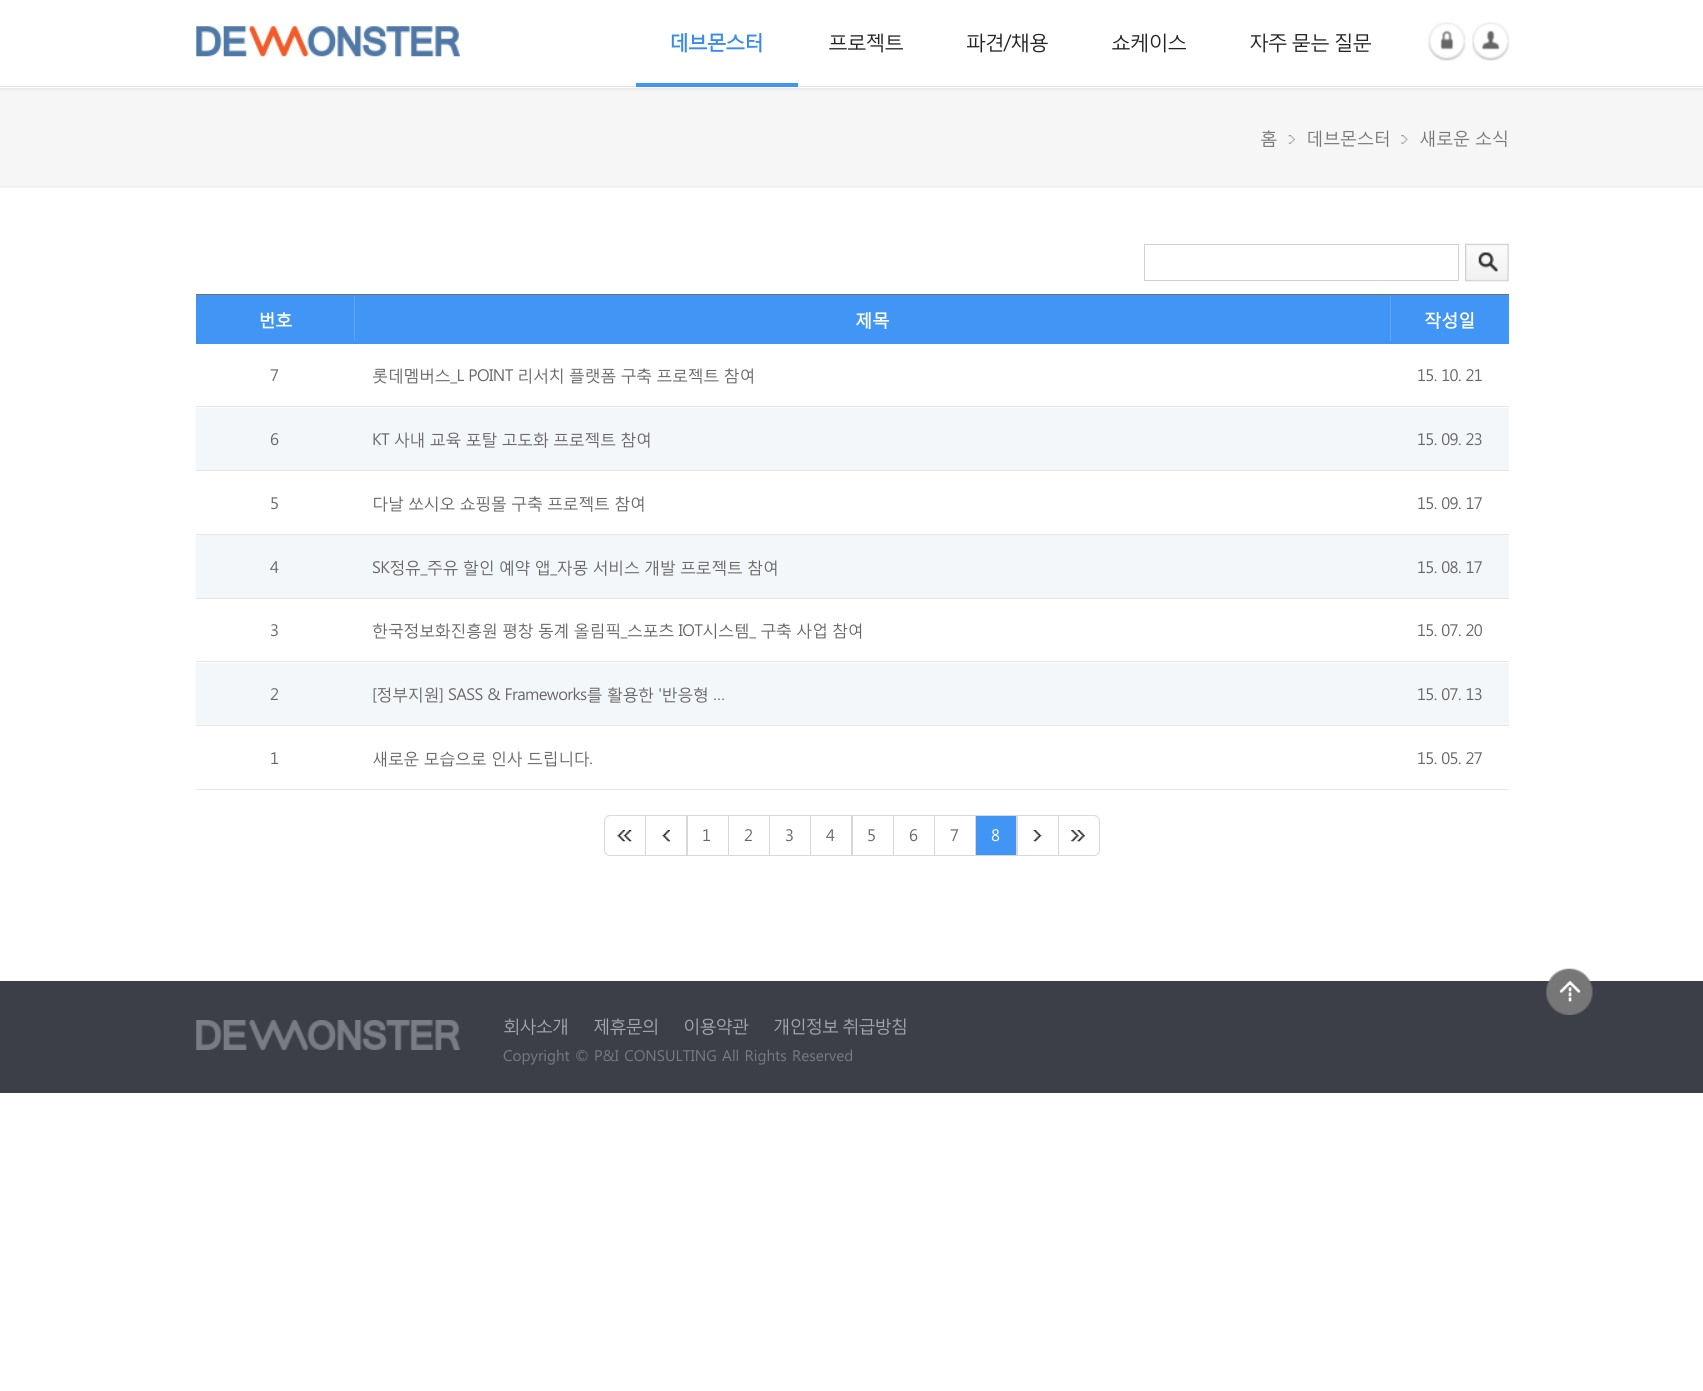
import math
import cairo

surface = cairo.ImageSurface(cairo.FORMAT_RGB24, 1703, 1391)
cr = cairo.Context(surface)
options = cairo.FontOptions()
options.set_hint_metrics(cairo.HINT_METRICS_OFF)
options.set_hint_style(cairo.HINT_STYLE_NONE)
cr.set_font_options(options)
cr.set_miter_limit(4)


def rgb(code):
    cr.set_source_rgb(*(v / 255 for v in bytes.fromhex(code[-6:])))


def tracked(x, y, s, letter, word):
    cr.move_to(x, y)
    for ch in s:
        cr.show_text(ch)
        cr.rel_move_to(letter + word * (ch == ' '), 0)


def image(path, x, y, w, h):
    cr.save()
    cr.set_source_surface(cairo.ImageSurface.create_from_png(path), x, y)
    cr.rectangle(x, y, w, h)
    cr.fill()
    cr.restore()


rgb("#ffffff")
cr.paint()
rgb("#e2e2e2")
cr.rectangle(0, 86, 1703, 1)
cr.fill()
image("img/1.png", 196, 26, 264, 31)
rgb("#4195f5")
cr.rectangle(636, 83, 162, 4)
cr.fill()
image("img/2.png", 1428, 22, 38, 39)
image("img/3.png", 1472, 22, 38, 39)
rgb("#f6f6f6")
cr.rectangle(0, 91, 1703, 97)
cr.fill()
image("img/4.png", 0, 88, 1703, 3)
rgb("#ececec")
cr.rectangle(0, 186, 1703, 1)
cr.fill()
image("img/5.png", 1288, 135, 7, 9)
image("img/6.png", 1401, 135, 7, 9)
cr.rectangle(1144.5, 244.5, 314, 36)
rgb("#d1d1d1")
cr.set_line_width(1)
cr.stroke()
image("img/7.png", 1465, 243, 44, 39)
for x, y, w, h, color in [
    (196, 294, 1313, 1, "#707070"),
    (196, 295, 1313, 49, "#4195f5"),
    (354, 296, 1, 45, "#61a4f1"),
    (1390, 296, 1, 45, "#61a4f1"),
    (196, 406, 1313, 1, "#e6e6e6"),
    (196, 408, 1313, 62, "#f4f7f9"),
    (196, 470, 1313, 1, "#e6e6e6"),
    (196, 534, 1313, 1, "#e6e6e6"),
    (196, 535, 1313, 63, "#f4f7f9"),
    (196, 598, 1313, 1, "#e6e6e6"),
    (196, 661, 1313, 1, "#e6e6e6"),
    (196, 663, 1313, 62, "#f4f7f9"),
    (196, 725, 1313, 1, "#e6e6e6"),
    (196, 789, 1313, 1, "#e6e6e6"),
]:
    rgb(color)
    cr.rectangle(x, y, w, h)
    cr.fill()
cr.new_path()
cr.move_to(610, 815.5)
cr.line_to(645.5, 815.5)
cr.line_to(645.5, 855.5)
cr.line_to(610, 855.5)
cr.curve_to(607, 855.5, 604.5, 853, 604.5, 850)
cr.line_to(604.5, 821)
cr.curve_to(604.5, 818, 607, 815.5, 610, 815.5)
cr.close_path()
rgb("#d8d8d8")
cr.stroke()
image("img/8.png", 617, 830, 15, 12)
cr.rectangle(645.5, 815.5, 42, 40)
cr.stroke()
image("img/9.png", 662, 830, 8, 12)
cr.rectangle(686.5, 815.5, 42, 40)
cr.stroke()
cr.rectangle(728.5, 815.5, 41, 40)
cr.stroke()
cr.rectangle(769.5, 815.5, 41, 40)
cr.stroke()
cr.rectangle(810.5, 815.5, 42, 40)
cr.stroke()
cr.rectangle(851.5, 815.5, 42, 40)
cr.stroke()
cr.rectangle(893.5, 815.5, 41, 40)
cr.stroke()
cr.rectangle(934.5, 815.5, 41, 40)
cr.stroke()
rgb("#4195f5")
cr.rectangle(976, 816, 40, 39)
cr.fill()
cr.rectangle(975.5, 815.5, 42, 40)
rgb("#d8d8d8")
cr.stroke()
cr.rectangle(1016.5, 815.5, 42, 40)
cr.stroke()
image("img/10.png", 1033, 830, 9, 12)
cr.new_path()
cr.move_to(1058.5, 815.5)
cr.line_to(1094, 815.5)
cr.curve_to(1097, 815.5, 1099.5, 818, 1099.5, 821)
cr.line_to(1099.5, 850)
cr.curve_to(1099.5, 853, 1097, 855.5, 1094, 855.5)
cr.line_to(1058.5, 855.5)
cr.close_path()
cr.stroke()
image("img/11.png", 1071, 830, 14, 12)
rgb("#3c3f48")
cr.rectangle(0, 981, 1703, 112)
cr.fill()
image("img/12.png", 1546, 968, 47, 47)
image("img/13.png", 196, 1020, 264, 30)
cr.select_font_face("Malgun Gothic", cairo.FONT_SLANT_NORMAL, cairo.FONT_WEIGHT_BOLD)
cr.set_font_size(20)
rgb("#378bea")
tracked(669, 49, "데브몬스터", -1.25, 0)
cr.select_font_face("Malgun Gothic")
rgb("#222222")
for x, y, s in [
    (828, 49, "프로젝트"),
    (966, 49, "파견/채용"),
    (1111, 49, "쇼케이스"),
]:
    tracked(x, y, s, -1.25, 0)
tracked(1249, 49, "자주 묻는 질문", -1.25, -1)
cr.set_font_size(17.5)
rgb("#777777")
tracked(1260, 144, "홈", -0.6, 0)
tracked(1306, 144, "데브몬스터", -0.6, 0)
tracked(1419, 144, "새로운 소식", -0.6, -0.5)
cr.select_font_face("Malgun Gothic", cairo.FONT_SLANT_NORMAL, cairo.FONT_WEIGHT_BOLD)
rgb("#ffffff")
for x, y, s in [
    (258, 326, "번호"),
    (855, 326, "제목"),
    (1424, 326, "작성일"),
]:
    tracked(x, y, s, -0.6, 0)
cr.select_font_face("Malgun Gothic")
cr.set_font_size(16.25)
rgb("#666666")
tracked(270, 381, "7", -0.6, 0)
tracked(372, 381, "롯데멤버스_L POINT 리서치 플랫폼 구축 프로젝트 참여", -0.6, -0.5)
tracked(1417, 381, "15. 10. 21", -0.6, -0.5)
tracked(270, 445, "6", -0.6, 0)
tracked(372, 445, "KT 사내 교육 포탈 고도화 프로젝트 참여", -0.6, -0.5)
tracked(1417, 445, "15. 09. 23", -0.6, -0.5)
tracked(270, 509, "5", -0.6, 0)
tracked(372, 509, "다날 쏘시오 쇼핑몰 구축 프로젝트 참여", -0.6, -0.5)
tracked(1417, 509, "15. 09. 17", -0.6, -0.5)
tracked(270, 573, "4", -0.6, 0)
tracked(372, 573, "SK정유_주유 할인 예약 앱_자몽 서비스 개발 프로젝트 참여", -0.6, -0.5)
tracked(1417, 573, "15. 08. 17", -0.6, -0.5)
tracked(270, 636, "3", -0.6, 0)
tracked(372, 636, "한국정보화진흥원 평창 동계 올림픽_스포츠 IOT시스템_ 구축 사업 참여", -0.6, -0.5)
tracked(1417, 636, "15. 07. 20", -0.6, -0.5)
tracked(270, 700, "2", -0.6, 0)
tracked(372, 700, "[정부지원] SASS & Frameworks를 활용한 '반응형 …", -0.6, -0.5)
tracked(1417, 700, "15. 07. 13", -0.6, -0.5)
tracked(270, 764, "1", -0.6, 0)
tracked(372, 764, "새로운 모습으로 인사 드립니다.", -0.6, -0.5)
tracked(1417, 764, "15. 05. 27", -0.6, -0.5)
for x, y, s in [
    (702, 841, "1"),
    (744, 841, "2"),
    (785, 841, "3"),
    (826, 841, "4"),
    (867, 841, "5"),
    (909, 841, "6"),
    (950, 841, "7"),
]:
    cr.move_to(x, y)
    cr.show_text(s)
rgb("#ffffff")
cr.move_to(991, 841)
cr.show_text("8")
cr.set_font_size(17.5)
rgb("#a4a7b0")
for x, y, s in [
    (503, 1032, "회사소개"),
    (593, 1032, "제휴문의"),
    (683, 1032, "이용약관"),
]:
    tracked(x, y, s, -1.25, 0)
tracked(773, 1032, "개인정보 취급방침", -1.25, -1)
cr.set_font_size(15)
rgb("#797c84")
cr.move_to(503, 1061)
cr.show_text("Copyright © P&I CONSULTING All Rights Reserved")
surface.write_to_png("page.png")
